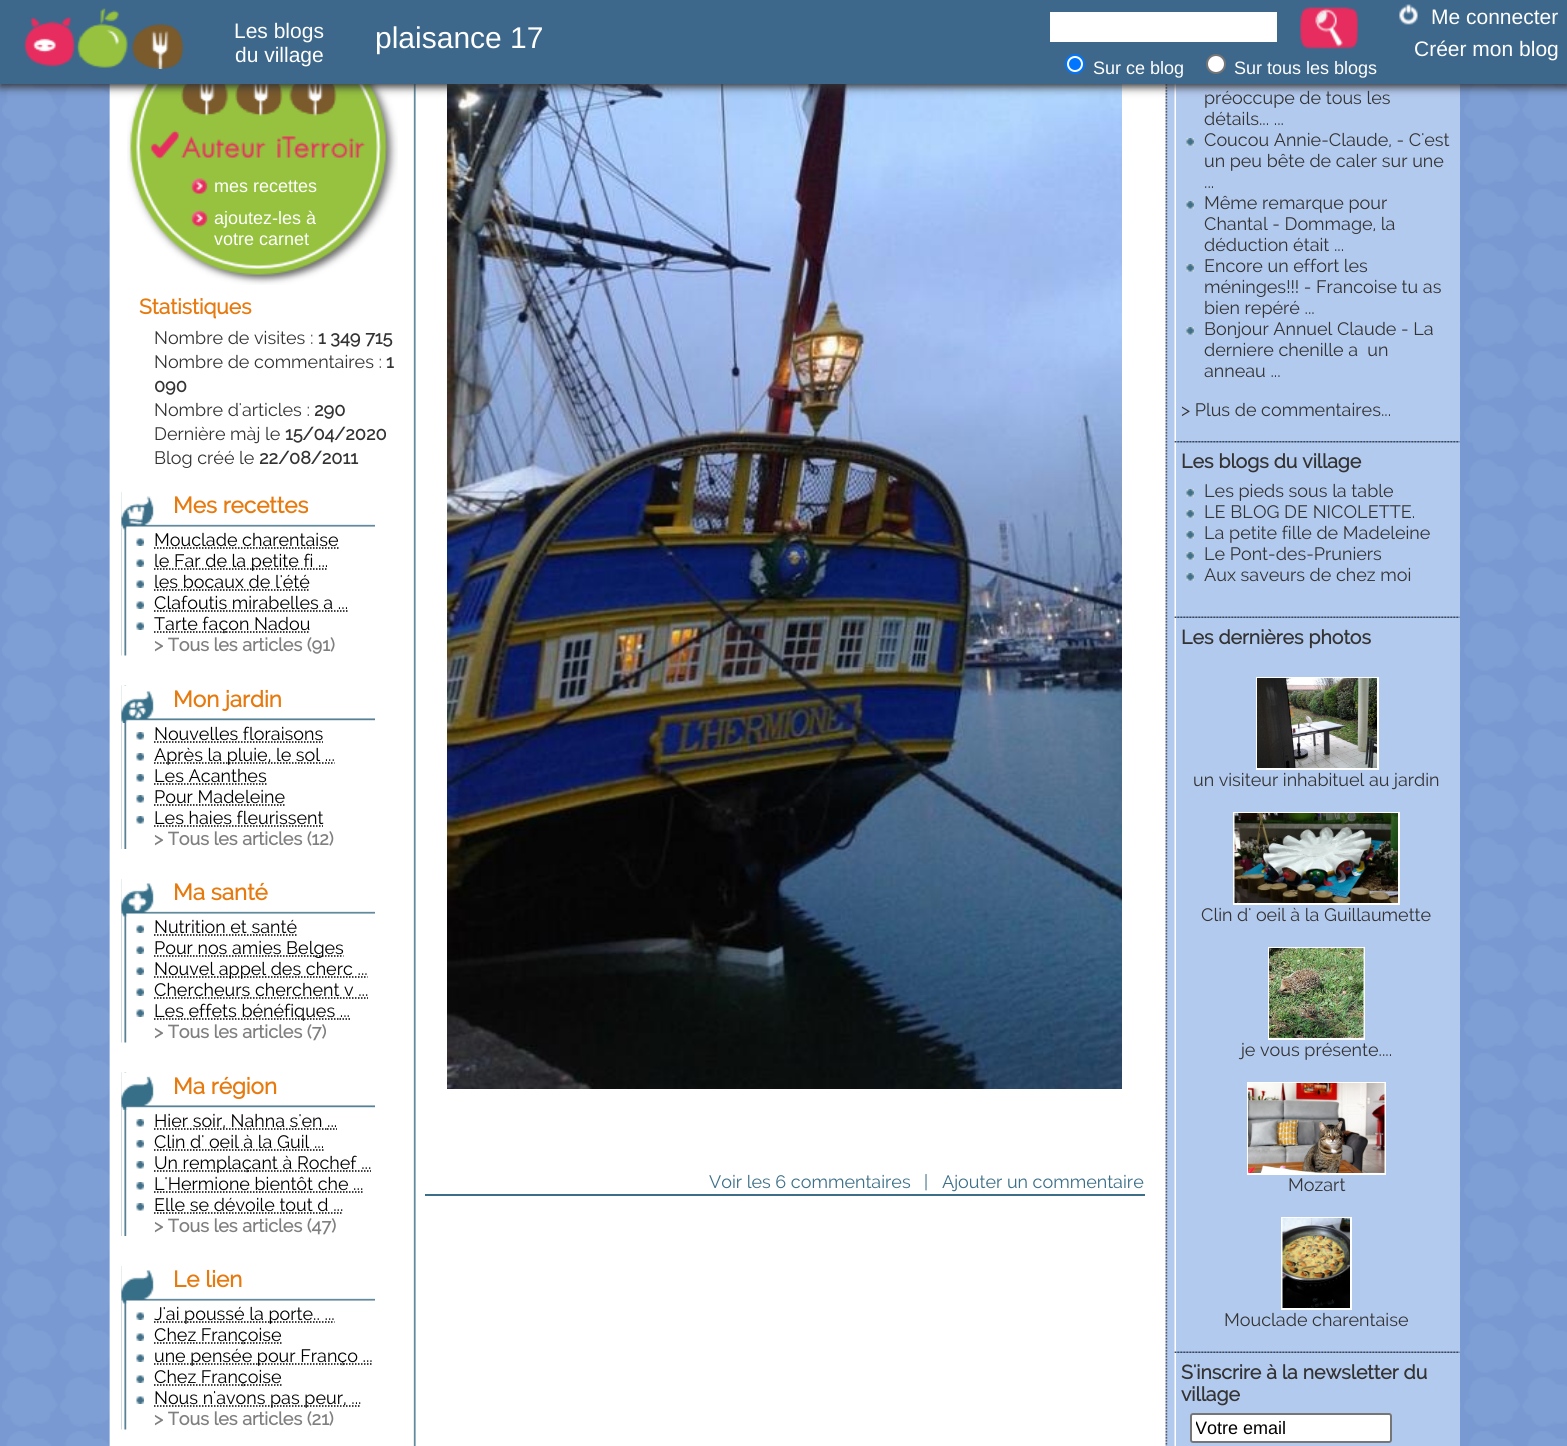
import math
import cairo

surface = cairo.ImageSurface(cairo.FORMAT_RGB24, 1567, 1446)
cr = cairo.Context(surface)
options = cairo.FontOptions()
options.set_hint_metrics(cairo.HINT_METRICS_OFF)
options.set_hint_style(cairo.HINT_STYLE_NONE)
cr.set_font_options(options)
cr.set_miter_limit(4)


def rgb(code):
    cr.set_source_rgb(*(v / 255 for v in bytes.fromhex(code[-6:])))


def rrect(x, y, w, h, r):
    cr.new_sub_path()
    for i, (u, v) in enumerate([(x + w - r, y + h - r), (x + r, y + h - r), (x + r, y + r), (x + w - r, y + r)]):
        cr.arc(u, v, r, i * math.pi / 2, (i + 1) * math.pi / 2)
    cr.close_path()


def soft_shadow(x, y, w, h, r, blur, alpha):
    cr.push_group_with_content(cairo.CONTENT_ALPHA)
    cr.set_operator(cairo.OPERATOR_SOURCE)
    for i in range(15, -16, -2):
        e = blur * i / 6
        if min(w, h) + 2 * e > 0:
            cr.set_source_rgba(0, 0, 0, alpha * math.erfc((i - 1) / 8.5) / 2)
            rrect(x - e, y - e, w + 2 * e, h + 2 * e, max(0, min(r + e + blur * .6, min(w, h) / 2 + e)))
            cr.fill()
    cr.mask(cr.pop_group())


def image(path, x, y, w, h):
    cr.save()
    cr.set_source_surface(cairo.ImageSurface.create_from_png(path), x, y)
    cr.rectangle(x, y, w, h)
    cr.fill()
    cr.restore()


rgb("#7899d1")
cr.paint()
image("img/1.png", 2, 84, 1565, 1362)
rgb("#b3caef")
cr.rectangle(1176, 84, 284, 1362)
cr.fill()
image("img/5.png", 109, 84, 1067, 1362)
image("img/6.png", 127, 84, 271, 201)
image("img/16.png", 447, 84, 675, 1005)
rgb("#333333")
soft_shadow(0, 3, 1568, 84, 0, 4.5, 1)
rgb("#3d688b")
cr.rectangle(0, 0, 1567, 84)
cr.fill()
image("img/2.png", 24, 8, 159, 61)
image("img/3.png", 1399, 4, 19, 21)
rgb("#ffffff")
cr.rectangle(1050, 12, 227, 30)
cr.fill()
image("img/4.png", 1300, 7, 58, 42)
cr.arc(1075, 64, 9, 0, 2 * math.pi)
cr.fill_preserve()
rgb("#0075ff")
cr.stroke()
cr.arc(1075, 64, 6, 0, 2 * math.pi)
cr.fill()
rgb("#ffffff")
cr.arc(1216, 64, 9, 0, 2 * math.pi)
cr.fill_preserve()
rgb("#767676")
cr.stroke()
image("img/7.png", 121, 492, 6, 164)
image("img/8.png", 121, 492, 254, 38)
image("img/9.png", 136, 538, 8, 8)
cr.new_path()
cr.move_to(154, 548)
cr.line_to(338.5, 548)
rgb("#000000")
cr.set_line_width(1.5)
cr.set_dash([1.5, 1.5])
cr.stroke()
image("img/9.png", 136, 559, 8, 8)
cr.new_path()
cr.move_to(154, 569)
cr.line_to(328, 569)
cr.stroke()
image("img/9.png", 136, 580, 8, 8)
cr.new_path()
cr.move_to(154, 590)
cr.line_to(309.5, 590)
cr.stroke()
image("img/9.png", 136, 601, 8, 8)
cr.new_path()
cr.move_to(154, 611)
cr.line_to(348, 611)
cr.stroke()
image("img/9.png", 136, 622, 8, 8)
cr.new_path()
cr.move_to(154, 632)
cr.line_to(310, 632)
cr.stroke()
image("img/10.png", 121, 685, 6, 164)
image("img/11.png", 121, 685, 254, 38)
image("img/12.png", 136, 732, 8, 8)
cr.new_path()
cr.move_to(154, 742)
cr.line_to(323, 742)
cr.stroke()
image("img/12.png", 136, 753, 8, 8)
cr.new_path()
cr.move_to(154, 763)
cr.line_to(334.5, 763)
cr.stroke()
image("img/12.png", 136, 774, 8, 8)
cr.new_path()
cr.move_to(154, 784)
cr.line_to(266.5, 784)
cr.stroke()
image("img/12.png", 136, 795, 8, 8)
cr.new_path()
cr.move_to(154, 805)
cr.line_to(285, 805)
cr.stroke()
image("img/12.png", 136, 816, 8, 8)
cr.new_path()
cr.move_to(154, 826)
cr.line_to(323, 826)
cr.stroke()
image("img/7.png", 121, 879, 6, 164)
image("img/13.png", 121, 879, 254, 38)
image("img/9.png", 136, 925, 8, 8)
cr.new_path()
cr.move_to(154, 935)
cr.line_to(296.5, 935)
cr.stroke()
image("img/9.png", 136, 946, 8, 8)
cr.new_path()
cr.move_to(154, 956)
cr.line_to(343.5, 956)
cr.stroke()
image("img/9.png", 136, 967, 8, 8)
cr.new_path()
cr.move_to(154, 977)
cr.line_to(367.5, 977)
cr.stroke()
image("img/9.png", 136, 988, 8, 8)
cr.new_path()
cr.move_to(154, 998)
cr.line_to(368, 998)
cr.stroke()
image("img/9.png", 136, 1009, 8, 8)
cr.new_path()
cr.move_to(154, 1019)
cr.line_to(339.5, 1019)
cr.stroke()
cr.new_path()
cr.move_to(339.5, 1019)
cr.line_to(341, 1019)
cr.move_to(342.5, 1019)
cr.line_to(344, 1019)
cr.move_to(345.5, 1019)
cr.line_to(347, 1019)
cr.move_to(348.5, 1019)
cr.line_to(350, 1019)
cr.set_dash([])
cr.stroke()
image("img/10.png", 121, 1072, 6, 164)
image("img/14.png", 121, 1072, 254, 38)
image("img/12.png", 136, 1119, 8, 8)
cr.new_path()
cr.move_to(154, 1129)
cr.line_to(327, 1129)
cr.set_dash([1.5, 1.5])
cr.stroke()
cr.new_path()
cr.move_to(327, 1129)
cr.line_to(328.5, 1129)
cr.move_to(330, 1129)
cr.line_to(331.5, 1129)
cr.move_to(333, 1129)
cr.line_to(334.5, 1129)
cr.move_to(336, 1129)
cr.line_to(337, 1129)
cr.set_dash([])
cr.stroke()
image("img/12.png", 136, 1140, 8, 8)
cr.new_path()
cr.move_to(154, 1150)
cr.line_to(324, 1150)
cr.set_dash([1.5, 1.5])
cr.stroke()
image("img/12.png", 136, 1161, 8, 8)
cr.new_path()
cr.move_to(154, 1171)
cr.line_to(371, 1171)
cr.stroke()
image("img/12.png", 136, 1182, 8, 8)
cr.new_path()
cr.move_to(154, 1192)
cr.line_to(363, 1192)
cr.stroke()
image("img/12.png", 136, 1203, 8, 8)
cr.new_path()
cr.move_to(154, 1213)
cr.line_to(343, 1213)
cr.stroke()
image("img/7.png", 121, 1266, 6, 164)
image("img/15.png", 121, 1266, 254, 38)
image("img/9.png", 136, 1312, 8, 8)
cr.new_path()
cr.move_to(154, 1322)
cr.line_to(334.5, 1322)
cr.stroke()
image("img/9.png", 136, 1333, 8, 8)
cr.new_path()
cr.move_to(154, 1343)
cr.line_to(281.5, 1343)
cr.stroke()
image("img/9.png", 136, 1354, 8, 8)
cr.new_path()
cr.move_to(154, 1364)
cr.line_to(372.5, 1364)
cr.stroke()
image("img/9.png", 136, 1375, 8, 8)
cr.new_path()
cr.move_to(154, 1385)
cr.line_to(281.5, 1385)
cr.stroke()
image("img/9.png", 136, 1396, 8, 8)
cr.new_path()
cr.move_to(154, 1406)
cr.line_to(361, 1406)
cr.stroke()
rgb("#3c6f87")
cr.rectangle(425, 1194, 720, 2)
cr.fill()
image("img/17.png", 1174, 441, 286, 2)
image("img/18.png", 1186, 138, 8, 8)
image("img/18.png", 1186, 201, 8, 8)
image("img/18.png", 1186, 264, 8, 8)
image("img/18.png", 1186, 327, 8, 8)
image("img/19.png", 1174, 616, 286, 2)
image("img/18.png", 1186, 489, 8, 8)
image("img/18.png", 1186, 510, 8, 8)
image("img/18.png", 1186, 531, 8, 8)
image("img/18.png", 1186, 552, 8, 8)
image("img/18.png", 1186, 573, 8, 8)
image("img/20.png", 1174, 1351, 286, 2)
cr.rectangle(1257, 678, 121, 91)
rgb("#ffffff")
cr.set_line_width(2)
cr.set_dash([])
cr.stroke()
image("img/21.png", 1257, 678, 120, 90)
cr.rectangle(1234, 813, 165, 91)
cr.stroke()
image("img/22.png", 1234, 813, 164, 90)
cr.rectangle(1269, 948, 95, 91)
cr.stroke()
image("img/23.png", 1269, 948, 95, 90)
cr.rectangle(1248, 1083, 137, 91)
cr.stroke()
image("img/24.png", 1248, 1083, 137, 90)
cr.rectangle(1282, 1218, 69, 91)
cr.stroke()
image("img/25.png", 1282, 1218, 68, 90)
rrect(1191, 1414, 200, 28, 2)
cr.fill_preserve()
rgb("#767676")
cr.stroke()
cr.select_font_face("Liberation Sans")
cr.set_font_size(21)
rgb("#ffffff")
cr.move_to(234, 38)
cr.show_text("Les blogs")
cr.move_to(235, 62)
cr.show_text("du village")
cr.set_font_size(30)
cr.move_to(375, 48)
cr.show_text("plaisance 17")
cr.set_font_size(21)
cr.move_to(1431, 24)
cr.show_text("Me connecter")
cr.move_to(1414, 56)
cr.show_text("Créer mon blog")
cr.set_font_size(18)
for x, y, s in [
    (1093, 74, "Sur ce blog"),
    (1234, 74, "Sur tous les blogs"),
    (214, 192, "mes recettes"),
    (214, 224, "ajoutez-les à"),
    (214, 245, "votre carnet"),
]:
    cr.move_to(x, y)
    cr.show_text(s)
cr.select_font_face("Raleway", cairo.FONT_SLANT_NORMAL, cairo.FONT_WEIGHT_BOLD)
cr.set_font_size(21)
rgb("#e77a0f")
cr.move_to(139, 314)
cr.show_text("Statistiques")
cr.select_font_face("Raleway")
cr.set_font_size(18)
rgb("#333333")
cr.move_to(154, 344)
cr.show_text("Nombre de visites :")
cr.select_font_face("Raleway", cairo.FONT_SLANT_NORMAL, cairo.FONT_WEIGHT_BOLD)
cr.move_to(318, 344)
cr.show_text("1 349 715")
cr.select_font_face("Raleway")
cr.move_to(154, 368)
cr.show_text("Nombre de commentaires :")
cr.select_font_face("Raleway", cairo.FONT_SLANT_NORMAL, cairo.FONT_WEIGHT_BOLD)
cr.move_to(386, 368)
cr.show_text("1")
cr.move_to(154, 392)
cr.show_text("090")
cr.select_font_face("Raleway")
cr.move_to(154, 416)
cr.show_text("Nombre d'articles :")
cr.select_font_face("Raleway", cairo.FONT_SLANT_NORMAL, cairo.FONT_WEIGHT_BOLD)
cr.move_to(314, 416)
cr.show_text("290")
cr.select_font_face("Raleway")
cr.move_to(154, 440)
cr.show_text("Dernière màj le")
cr.select_font_face("Raleway", cairo.FONT_SLANT_NORMAL, cairo.FONT_WEIGHT_BOLD)
cr.move_to(285, 440)
cr.show_text("15/04/2020")
cr.select_font_face("Raleway")
cr.move_to(154, 464)
cr.show_text("Blog créé le")
cr.select_font_face("Raleway", cairo.FONT_SLANT_NORMAL, cairo.FONT_WEIGHT_BOLD)
cr.move_to(259, 464)
cr.show_text("22/08/2011")
cr.set_font_size(22.5)
rgb("#e77a0f")
cr.move_to(173, 513)
cr.show_text("Mes recettes")
cr.select_font_face("Raleway")
cr.set_font_size(18)
rgb("#000000")
for x, y, s in [
    (154, 546, "Mouclade charentaise"),
    (154, 567, "le Far de la petite fi ..."),
    (154, 588, "les bocaux de l'été"),
    (154, 609, "Clafoutis mirabelles a ..."),
    (154, 630, "Tarte façon Nadou"),
]:
    cr.move_to(x, y)
    cr.show_text(s)
cr.select_font_face("Raleway", cairo.FONT_SLANT_NORMAL, cairo.FONT_WEIGHT_BOLD)
rgb("#7f7f7f")
cr.move_to(154, 651)
cr.show_text("> Tous les articles (91)")
cr.set_font_size(22.5)
rgb("#e77a0f")
cr.move_to(173, 707)
cr.show_text("Mon jardin")
cr.select_font_face("Raleway")
cr.set_font_size(18)
rgb("#000000")
for x, y, s in [
    (154, 740, "Nouvelles floraisons"),
    (154, 761, "Après la pluie, le sol ..."),
    (154, 782, "Les Acanthes"),
    (154, 803, "Pour Madeleine"),
    (154, 824, "Les haies fleurissent"),
]:
    cr.move_to(x, y)
    cr.show_text(s)
cr.select_font_face("Raleway", cairo.FONT_SLANT_NORMAL, cairo.FONT_WEIGHT_BOLD)
rgb("#7f7f7f")
cr.move_to(154, 845)
cr.show_text("> Tous les articles (12)")
cr.set_font_size(22.5)
rgb("#e77a0f")
cr.move_to(173, 900)
cr.show_text("Ma santé")
cr.select_font_face("Raleway")
cr.set_font_size(18)
rgb("#000000")
for x, y, s in [
    (154, 933, "Nutrition et santé"),
    (154, 954, "Pour nos amies Belges"),
    (154, 975, "Nouvel appel des cherc ..."),
    (154, 996, "Chercheurs cherchent v ..."),
    (154, 1017, "Les effets bénéfiques ..."),
]:
    cr.move_to(x, y)
    cr.show_text(s)
cr.select_font_face("Raleway", cairo.FONT_SLANT_NORMAL, cairo.FONT_WEIGHT_BOLD)
rgb("#7f7f7f")
cr.move_to(154, 1038)
cr.show_text("> Tous les articles (7)")
cr.set_font_size(22.5)
rgb("#e77a0f")
cr.move_to(173, 1094)
cr.show_text("Ma région")
cr.select_font_face("Raleway")
cr.set_font_size(18)
rgb("#000000")
for x, y, s in [
    (154, 1127, "Hier soir, Nahna s'en ..."),
    (154, 1148, "Clin d' oeil à la Guil ..."),
    (154, 1169, "Un remplaçant à Rochef ..."),
    (154, 1190, "L'Hermione bientôt che ..."),
    (154, 1211, "Elle se dévoile tout d ..."),
]:
    cr.move_to(x, y)
    cr.show_text(s)
cr.select_font_face("Raleway", cairo.FONT_SLANT_NORMAL, cairo.FONT_WEIGHT_BOLD)
rgb("#7f7f7f")
cr.move_to(154, 1232)
cr.show_text("> Tous les articles (47)")
cr.set_font_size(22.5)
rgb("#e77a0f")
cr.move_to(173, 1287)
cr.show_text("Le lien")
cr.select_font_face("Raleway")
cr.set_font_size(18)
rgb("#000000")
for x, y, s in [
    (154, 1320, "J'ai poussé la porte.. ..."),
    (154, 1341, "Chez Françoise"),
    (154, 1362, "une pensée pour Franço ..."),
    (154, 1383, "Chez Françoise"),
    (154, 1404, "Nous n'avons pas peur, ..."),
]:
    cr.move_to(x, y)
    cr.show_text(s)
cr.select_font_face("Raleway", cairo.FONT_SLANT_NORMAL, cairo.FONT_WEIGHT_BOLD)
rgb("#7f7f7f")
cr.move_to(154, 1425)
cr.show_text("> Tous les articles (21)")
cr.select_font_face("Raleway")
rgb("#3c6f87")
for x, y, s in [
    (709, 1188, "Voir les 6 commentaires"),
    (924, 1188, "|"),
    (942, 1188, "Ajouter un commentaire"),
]:
    cr.move_to(x, y)
    cr.show_text(s)
rgb("#333333")
for x, y, s in [
    (1204, 104, "préoccupe de tous les"),
    (1204, 125, "détails... ..."),
    (1204, 146, "Coucou Annie-Claude, - C'est"),
    (1204, 167, "un peu bête de caler sur une"),
    (1204, 188, "..."),
    (1204, 209, "Même remarque pour"),
    (1204, 230, "Chantal - Dommage, la"),
    (1204, 251, "déduction était ..."),
    (1204, 272, "Encore un effort les"),
    (1204, 293, "méninges!!! - Francoise tu as"),
    (1204, 314, "bien repéré ..."),
    (1204, 335, "Bonjour Annuel Claude - La"),
    (1204, 356, "derniere chenille a  un"),
    (1204, 377, "anneau ..."),
    (1181, 416, "> Plus de commentaires..."),
]:
    cr.move_to(x, y)
    cr.show_text(s)
cr.select_font_face("Raleway", cairo.FONT_SLANT_NORMAL, cairo.FONT_WEIGHT_BOLD)
cr.set_font_size(19.5)
cr.move_to(1181, 468)
cr.show_text("Les blogs du village")
cr.select_font_face("Raleway")
cr.set_font_size(18)
for x, y, s in [
    (1204, 497, "Les pieds sous la table"),
    (1204, 518, "LE BLOG DE NICOLETTE."),
    (1204, 539, "La petite fille de Madeleine"),
    (1204, 560, "Le Pont-des-Pruniers"),
    (1204, 581, "Aux saveurs de chez moi"),
]:
    cr.move_to(x, y)
    cr.show_text(s)
cr.select_font_face("Raleway", cairo.FONT_SLANT_NORMAL, cairo.FONT_WEIGHT_BOLD)
cr.set_font_size(19.5)
cr.move_to(1181, 644)
cr.show_text("Les dernières photos")
cr.select_font_face("Raleway")
cr.set_font_size(18)
for x, y, s in [
    (1193, 786, "un visiteur inhabituel au jardin"),
    (1201, 921, "Clin d' oeil à la Guillaumette"),
    (1241, 1056, "je vous présente...."),
    (1288, 1191, "Mozart"),
    (1224, 1326, "Mouclade charentaise"),
]:
    cr.move_to(x, y)
    cr.show_text(s)
cr.select_font_face("Raleway", cairo.FONT_SLANT_NORMAL, cairo.FONT_WEIGHT_BOLD)
cr.set_font_size(19.5)
cr.move_to(1181, 1379)
cr.show_text("S'inscrire à la newsletter du")
cr.move_to(1181, 1401)
cr.show_text("village")
cr.save()
cr.rectangle(1196, 1418, 190, 21)
cr.clip()
cr.select_font_face("Liberation Sans")
cr.set_font_size(18)
rgb("#000000")
cr.move_to(1195, 1434)
cr.show_text("Votre email")
cr.restore()
surface.write_to_png("page.png")
